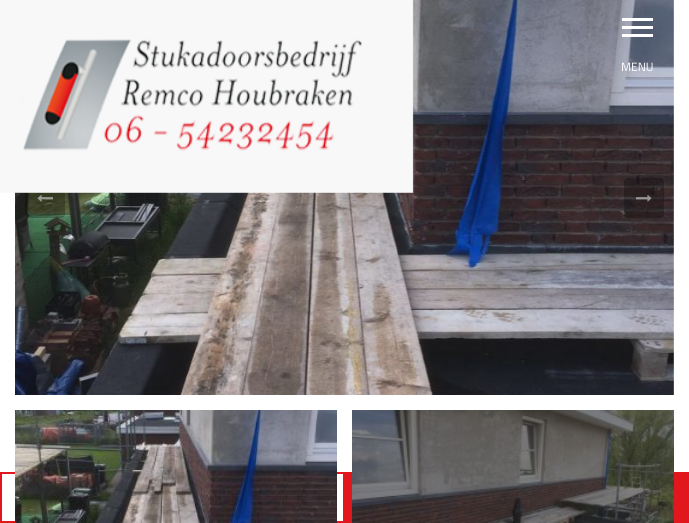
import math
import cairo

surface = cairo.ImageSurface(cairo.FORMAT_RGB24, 689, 523)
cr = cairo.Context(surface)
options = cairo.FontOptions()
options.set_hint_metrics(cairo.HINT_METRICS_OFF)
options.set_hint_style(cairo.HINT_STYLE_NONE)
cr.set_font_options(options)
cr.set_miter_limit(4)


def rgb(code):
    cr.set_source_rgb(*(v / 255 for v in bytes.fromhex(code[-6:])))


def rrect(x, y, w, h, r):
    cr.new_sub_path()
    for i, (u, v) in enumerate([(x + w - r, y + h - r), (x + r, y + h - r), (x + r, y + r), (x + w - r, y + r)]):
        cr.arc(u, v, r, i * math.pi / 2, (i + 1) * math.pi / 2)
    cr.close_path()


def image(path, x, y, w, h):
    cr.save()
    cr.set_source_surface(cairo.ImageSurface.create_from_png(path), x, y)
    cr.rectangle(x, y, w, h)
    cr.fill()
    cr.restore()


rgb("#ffffff")
cr.paint()
image("img/2.png", 15, 0, 659, 395)
cr.set_source_rgba(0, 0, 0, 0.25)
rrect(25, 178, 40, 40, 4)
cr.fill()
image("img/1.png", 0, 0, 414, 193)
image("img/3.png", 37, 195, 16, 7)
rrect(624, 178, 40, 40, 4)
cr.fill()
image("img/4.png", 636, 195, 16, 7)
cr.rectangle(1, 473, 343, 49)
rgb("#e2171e")
cr.stroke()
image("img/5.png", 15, 410, 322, 113)
cr.rectangle(345, 472, 344, 51)
cr.fill()
image("img/6.png", 352, 410, 322, 113)
for x, y, w, h, color in [
    (622, 26, 31, 3, "#ffffff"),
    (622, 18, 31, 3, "#ffffff"),
    (622, 34, 31, 3, "#ffffff"),
]:
    rgb(color)
    cr.rectangle(x, y, w, h)
    cr.fill()
cr.select_font_face("Titillium Web")
cr.set_font_size(12)
cr.move_to(621, 71)
cr.show_text("MENU")
surface.write_to_png("page.png")
